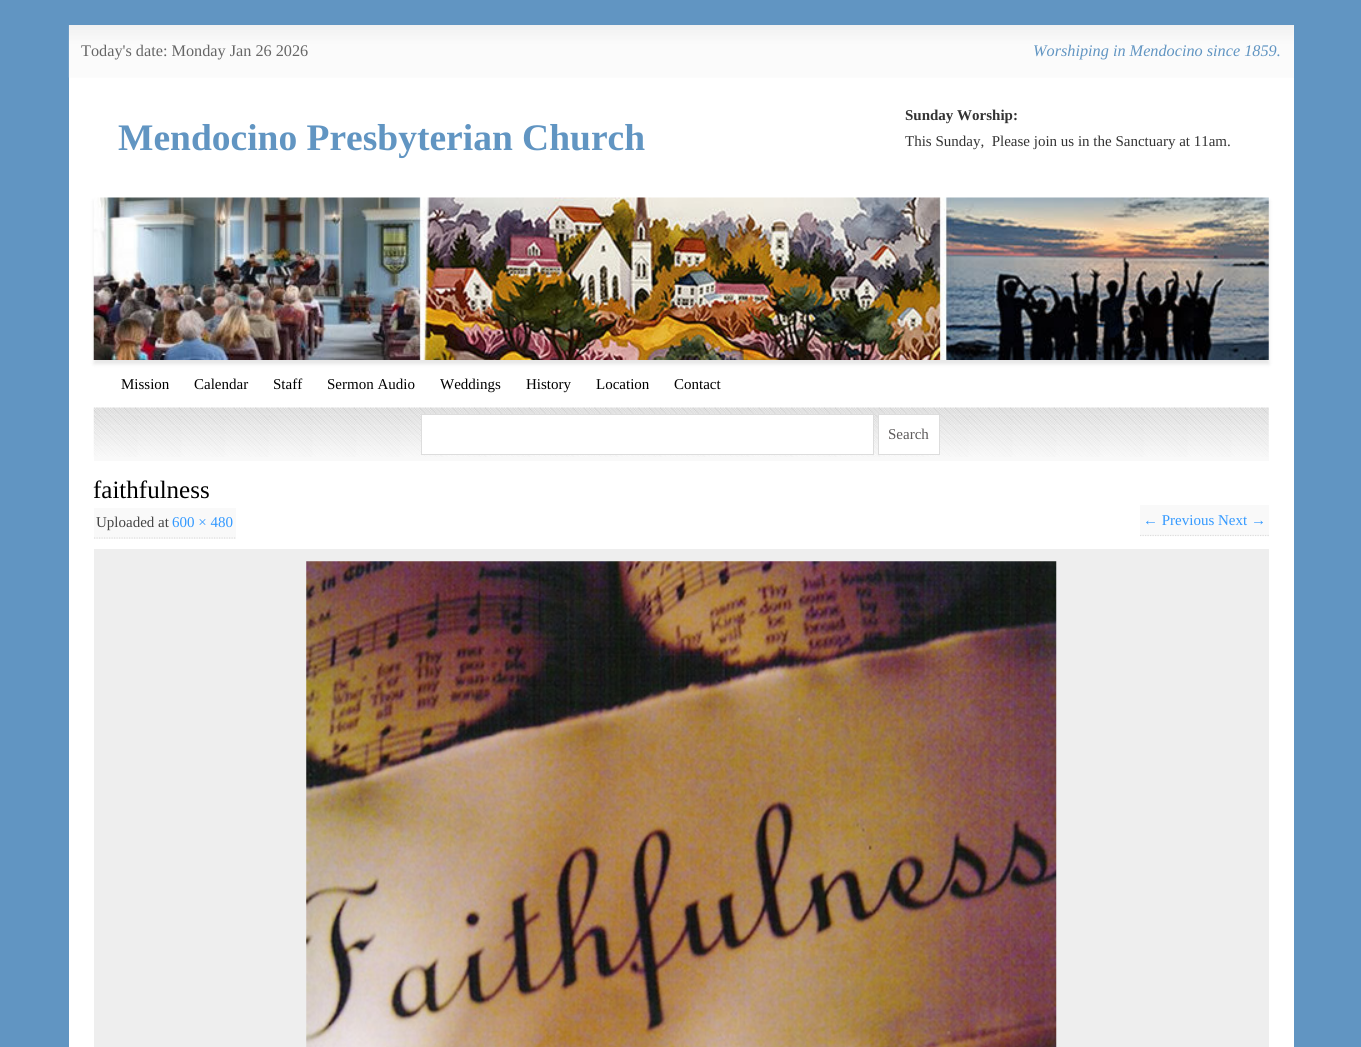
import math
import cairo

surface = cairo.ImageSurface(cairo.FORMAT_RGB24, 1361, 1047)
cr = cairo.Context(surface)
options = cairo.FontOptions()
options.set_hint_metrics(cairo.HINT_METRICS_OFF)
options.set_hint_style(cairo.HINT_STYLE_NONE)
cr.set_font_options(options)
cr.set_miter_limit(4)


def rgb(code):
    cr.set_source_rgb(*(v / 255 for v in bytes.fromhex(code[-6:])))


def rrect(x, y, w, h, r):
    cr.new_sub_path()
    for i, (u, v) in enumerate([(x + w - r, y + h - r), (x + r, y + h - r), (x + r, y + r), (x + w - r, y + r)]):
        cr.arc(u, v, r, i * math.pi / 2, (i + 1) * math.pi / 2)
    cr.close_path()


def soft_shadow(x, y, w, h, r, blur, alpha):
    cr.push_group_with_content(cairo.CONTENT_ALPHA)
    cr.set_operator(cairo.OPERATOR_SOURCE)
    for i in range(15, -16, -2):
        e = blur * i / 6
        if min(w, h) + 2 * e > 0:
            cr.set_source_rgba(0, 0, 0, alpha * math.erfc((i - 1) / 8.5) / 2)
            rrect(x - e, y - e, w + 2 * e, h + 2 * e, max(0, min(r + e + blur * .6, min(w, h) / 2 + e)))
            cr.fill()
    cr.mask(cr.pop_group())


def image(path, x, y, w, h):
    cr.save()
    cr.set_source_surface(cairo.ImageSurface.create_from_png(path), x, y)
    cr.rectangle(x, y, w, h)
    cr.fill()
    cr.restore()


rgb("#6195c2")
cr.paint()
rgb("#fcfcfc")
cr.rectangle(69, 25, 1225, 53)
cr.fill()
image("img/1.png", 68, 25, 1226, 53)
rgb("#ffffff")
cr.rectangle(69, 78, 1225, 969)
cr.fill()
rgb("#000000")
soft_shadow(94, 201, 1175, 163, 0, 2, 0.1)
image("img/2.png", 93, 197, 1176, 163)
rgb("#f9f9f9")
cr.rectangle(94, 408, 1175, 53)
cr.fill()
image("img/3.png", 93, 407, 1176, 50)
rgb("#ffffff")
cr.rectangle(421.5, 414.5, 452, 40)
cr.fill_preserve()
rgb("#dddddd")
cr.set_line_width(1)
cr.stroke()
rgb("#ffffff")
cr.rectangle(878.5, 414.5, 61, 40)
cr.fill_preserve()
rgb("#dddddd")
cr.stroke()
rgb("#f9f9f9")
cr.rectangle(94, 508, 142, 31)
cr.fill()
cr.new_path()
cr.move_to(94, 538)
cr.line_to(236, 538)
rgb("#dddddd")
cr.set_line_width(1.2)
cr.set_dash([1.25, 1.25])
cr.stroke()
rgb("#f9f9f9")
cr.rectangle(1140, 505, 129, 31)
cr.fill()
cr.new_path()
cr.move_to(1140, 535.5)
cr.line_to(1269, 535.5)
rgb("#dddddd")
cr.stroke()
rgb("#eeeeee")
cr.rectangle(94, 549, 1175, 498)
cr.fill()
image("img/4.png", 306, 561, 751, 486)
cr.select_font_face("Liberation Serif")
cr.set_font_size(16.25)
rgb("#666666")
cr.move_to(81, 56)
cr.show_text("Today's date: Monday Jan 26 2026")
cr.select_font_face("Liberation Serif", cairo.FONT_SLANT_ITALIC)
rgb("#6195c2")
cr.move_to(1033, 56)
cr.show_text("Worshiping in Mendocino since 1859.")
cr.select_font_face("Liberation Serif", cairo.FONT_SLANT_NORMAL, cairo.FONT_WEIGHT_BOLD)
cr.set_font_size(37.5)
cr.move_to(118, 150)
cr.show_text("Mendocino Presbyterian Church")
cr.set_font_size(15)
rgb("#333333")
cr.move_to(905, 120)
cr.show_text("Sunday Worship:")
cr.select_font_face("Liberation Serif")
cr.move_to(905, 146)
cr.show_text("This Sunday,  Please join us in the Sanctuary at 11am.")
rgb("#000000")
for x, y, s in [
    (121, 389, "Mission"),
    (194, 389, "Calendar"),
    (273, 389, "Staff"),
    (327, 389, "Sermon Audio"),
    (440, 389, "Weddings"),
    (526, 389, "History"),
    (596, 389, "Location"),
    (674, 389, "Contact"),
]:
    cr.move_to(x, y)
    cr.show_text(s)
rgb("#5d5a5a")
cr.move_to(888, 439)
cr.show_text("Search")
cr.set_font_size(25)
rgb("#000000")
cr.move_to(93, 498)
cr.show_text("faithfulness")
cr.set_font_size(15)
rgb("#444444")
cr.move_to(96, 527)
cr.show_text("Uploaded at")
rgb("#3399ff")
cr.move_to(172, 527)
cr.show_text("600 × 480")
cr.move_to(1143, 525)
cr.show_text("← Previous Next →")
surface.write_to_png("page.png")
